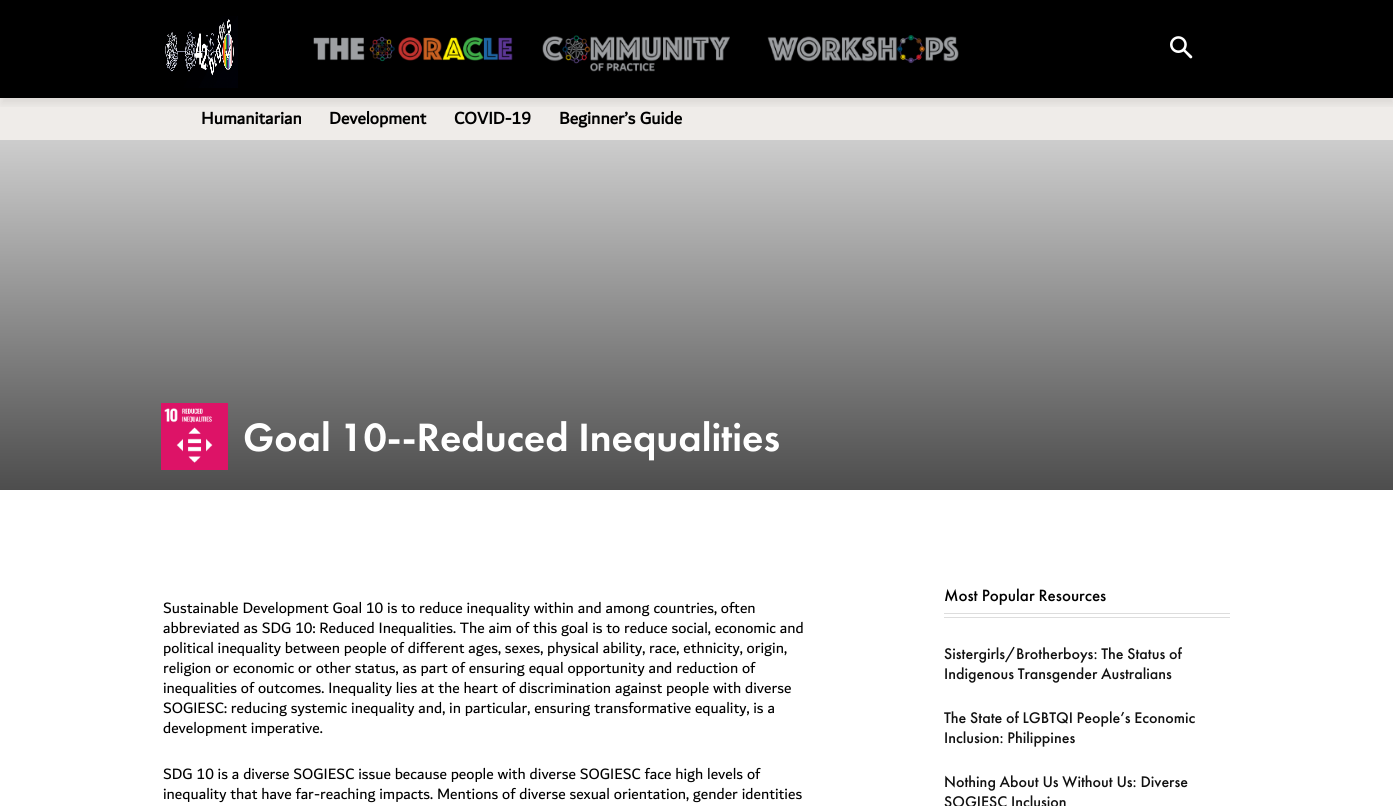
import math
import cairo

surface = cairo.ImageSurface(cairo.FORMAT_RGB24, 1393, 806)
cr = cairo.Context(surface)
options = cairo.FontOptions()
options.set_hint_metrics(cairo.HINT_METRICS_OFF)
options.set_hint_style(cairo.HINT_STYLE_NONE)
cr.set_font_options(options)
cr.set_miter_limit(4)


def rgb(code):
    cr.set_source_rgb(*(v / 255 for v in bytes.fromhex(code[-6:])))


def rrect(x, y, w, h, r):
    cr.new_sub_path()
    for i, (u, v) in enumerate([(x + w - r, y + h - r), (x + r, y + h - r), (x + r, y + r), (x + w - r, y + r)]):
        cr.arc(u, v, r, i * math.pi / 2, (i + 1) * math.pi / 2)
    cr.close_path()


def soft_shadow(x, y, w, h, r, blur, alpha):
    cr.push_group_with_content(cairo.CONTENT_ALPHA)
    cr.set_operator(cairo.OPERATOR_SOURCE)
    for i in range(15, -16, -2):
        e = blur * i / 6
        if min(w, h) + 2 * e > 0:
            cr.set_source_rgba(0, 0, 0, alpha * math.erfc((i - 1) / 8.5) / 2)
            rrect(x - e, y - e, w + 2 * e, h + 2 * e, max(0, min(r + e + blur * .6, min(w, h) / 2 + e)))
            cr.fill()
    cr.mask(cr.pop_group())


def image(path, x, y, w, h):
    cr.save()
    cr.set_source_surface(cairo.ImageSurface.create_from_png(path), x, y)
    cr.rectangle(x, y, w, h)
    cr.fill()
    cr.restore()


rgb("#ffffff")
cr.paint()
rgb("#000000")
cr.rectangle(0, 0, 1393, 98)
cr.fill()
image("img/1.png", 165, 16, 73, 72)
image("img/2.png", 313, 36, 200, 26)
image("img/3.png", 542, 35, 188, 37)
image("img/4.png", 767, 35, 192, 29)
rgb("#efece9")
cr.rectangle(0, 98, 1393, 42)
cr.fill()
cr.save()
cr.rectangle(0, 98, 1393, 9)
cr.clip()
rgb("#000000")
soft_shadow(1, 6, 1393, 98, 0, 4, 0.08)
cr.restore()
image("img/5.png", 1170, 36, 23, 23)
gradient = cairo.LinearGradient(697, 490, 697, 140)
gradient.add_color_stop_rgba(0, 0.302, 0.302, 0.302, 1)
gradient.add_color_stop_rgba(1, 0.804, 0.804, 0.804, 1)
cr.set_source(gradient)
cr.rectangle(0, 140, 1393, 350)
cr.fill()
image("img/6.png", 161, 403, 67, 67)
rgb("#dddddd")
cr.rectangle(944, 613, 286, 1)
cr.fill()
cr.rectangle(944, 617, 286, 1)
cr.fill()
cr.select_font_face("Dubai", cairo.FONT_SLANT_NORMAL, cairo.FONT_WEIGHT_BOLD)
cr.set_font_size(18)
rgb("#000000")
for x, y, s in [
    (201, 124, "Humanitarian"),
    (329, 124, "Development"),
    (454, 124, "COVID-19"),
    (559, 124, "Beginner’s Guide"),
]:
    cr.move_to(x, y)
    cr.show_text(s)
cr.select_font_face("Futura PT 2 Medium")
cr.set_font_size(41)
rgb("#ffffff")
cr.move_to(243, 451)
cr.show_text("Goal 10--Reduced Inequalities")
cr.select_font_face("Dubai")
cr.set_font_size(16)
rgb("#000000")
for x, y, s in [
    (163, 613, "Sustainable Development Goal 10 is to reduce inequality within and among countries, often"),
    (163, 633, "abbreviated as SDG 10: Reduced Inequalities. The aim of this goal is to reduce social, economic and"),
    (163, 653, "political inequality between people of different ages, sexes, physical ability, race, ethnicity, origin,"),
    (163, 673, "religion or economic or other status, as part of ensuring equal opportunity and reduction of"),
    (163, 693, "inequalities of outcomes. Inequality lies at the heart of discrimination against people with diverse"),
    (163, 713, "SOGIESC: reducing systemic inequality and, in particular, ensuring transformative equality, is a"),
    (163, 733, "development imperative."),
    (163, 779, "SDG 10 is a diverse SOGIESC issue because people with diverse SOGIESC face high levels of"),
    (163, 799, "inequality that have far-reaching impacts. Mentions of diverse sexual orientation, gender identities"),
]:
    cr.move_to(x, y)
    cr.show_text(s)
cr.select_font_face("Futura PT Medium")
cr.set_font_size(17)
cr.move_to(944, 601)
cr.show_text("Most Popular Resources")
cr.set_font_size(16)
rgb("#111111")
for x, y, s in [
    (944, 659, "Sistergirls/Brotherboys: The Status of"),
    (944, 679, "Indigenous Transgender Australians"),
    (944, 723, "The State of LGBTQI People’s Economic"),
    (944, 743, "Inclusion: Philippines"),
    (944, 787, "Nothing About Us Without Us: Diverse"),
    (944, 807, "SOGIESC Inclusion"),
]:
    cr.move_to(x, y)
    cr.show_text(s)
surface.write_to_png("page.png")
